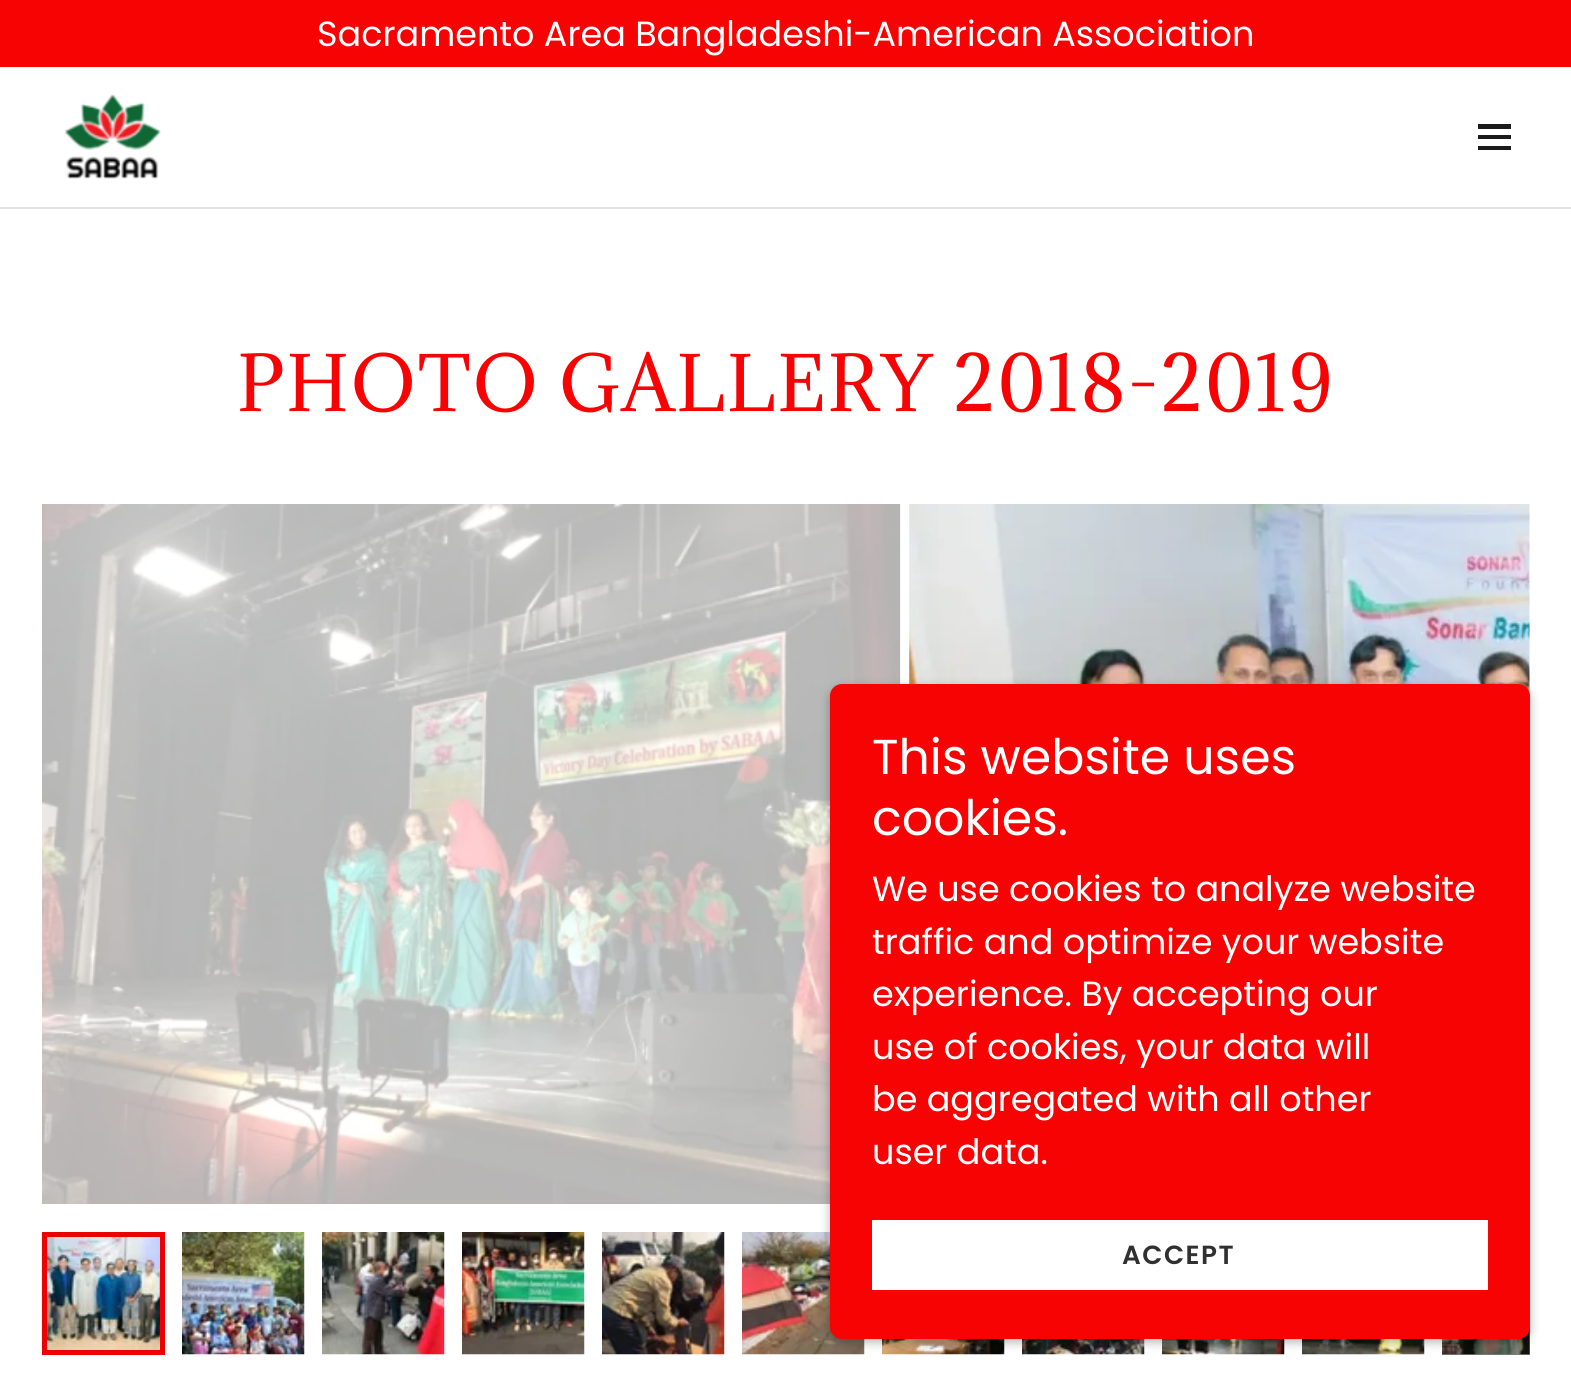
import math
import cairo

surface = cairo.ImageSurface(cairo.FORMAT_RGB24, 1571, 1380)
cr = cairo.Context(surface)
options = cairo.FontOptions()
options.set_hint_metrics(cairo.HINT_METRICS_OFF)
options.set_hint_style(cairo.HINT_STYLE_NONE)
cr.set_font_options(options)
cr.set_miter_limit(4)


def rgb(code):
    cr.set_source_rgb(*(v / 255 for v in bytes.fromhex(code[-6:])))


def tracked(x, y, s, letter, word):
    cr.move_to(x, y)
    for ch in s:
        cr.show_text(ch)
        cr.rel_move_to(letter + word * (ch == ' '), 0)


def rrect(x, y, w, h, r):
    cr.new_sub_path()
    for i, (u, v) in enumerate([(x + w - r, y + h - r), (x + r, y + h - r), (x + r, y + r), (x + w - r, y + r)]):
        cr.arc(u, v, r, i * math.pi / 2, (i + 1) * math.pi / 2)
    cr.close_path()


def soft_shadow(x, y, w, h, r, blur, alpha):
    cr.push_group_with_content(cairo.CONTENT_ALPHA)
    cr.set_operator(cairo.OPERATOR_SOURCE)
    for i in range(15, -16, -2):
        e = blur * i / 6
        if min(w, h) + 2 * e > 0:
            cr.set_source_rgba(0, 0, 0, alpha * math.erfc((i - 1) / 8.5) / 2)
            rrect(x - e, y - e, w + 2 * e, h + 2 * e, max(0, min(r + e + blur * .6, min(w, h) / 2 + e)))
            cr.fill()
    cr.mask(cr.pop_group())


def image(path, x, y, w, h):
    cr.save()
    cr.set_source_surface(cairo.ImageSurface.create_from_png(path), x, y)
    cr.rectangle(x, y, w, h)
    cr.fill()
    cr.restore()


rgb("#ffffff")
cr.paint()
rgb("#f70303")
cr.rectangle(0, 0, 1571, 67)
cr.fill()
image("img/1.png", 65, 94, 96, 85)
for x, y, w, h, color in [
    (1478, 124, 33, 5, "#1b1b1b"),
    (1478, 135, 33, 4, "#1b1b1b"),
    (1478, 146, 33, 4, "#1b1b1b"),
    (0, 207, 1571, 2, "#e2e2e2"),
    (1442, 1327, 88, 28, "#808080"),
]:
    rgb(color)
    cr.rectangle(x, y, w, h)
    cr.fill()
image("img/2.png", 42, 504, 859, 700)
image("img/3.png", 909, 504, 621, 192)
image("img/4.png", 47, 1237, 113, 113)
cr.rectangle(44.5, 1234.5, 118, 118)
rgb("#ed0202")
cr.set_line_width(5)
cr.stroke()
image("img/5.png", 182, 1232, 123, 123)
image("img/6.png", 322, 1232, 123, 123)
image("img/7.png", 462, 1232, 123, 123)
image("img/8.png", 602, 1232, 123, 123)
image("img/9.png", 742, 1232, 123, 123)
image("img/10.png", 882, 1339, 123, 16)
image("img/11.png", 1022, 1339, 123, 16)
image("img/12.png", 1162, 1339, 123, 16)
image("img/13.png", 1302, 1339, 123, 16)
image("img/14.png", 1442, 1327, 88, 28)
rgb("#000000")
soft_shadow(830, 688, 700, 654, 12, 5, 0.3)
rgb("#f70303")
rrect(830, 684, 700, 655, 12)
cr.fill()
rgb("#ffffff")
cr.rectangle(872, 1220, 616, 70)
cr.fill()
cr.select_font_face("Poppins")
cr.set_font_size(35)
cr.move_to(317, 46)
cr.show_text("Sacramento Area Bangladeshi-American Association")
cr.select_font_face("Adamina")
cr.set_font_size(71.75)
rgb("#f70303")
tracked(237, 411, "PHOTO GALLERY 2018-2019", 1.75, 0)
cr.select_font_face("Poppins")
cr.set_font_size(49)
rgb("#ffffff")
cr.move_to(872, 774)
cr.show_text("This website uses")
cr.move_to(872, 835)
cr.show_text("cookies.")
cr.set_font_size(35)
for x, y, s in [
    (872, 901, "We use cookies to analyze website"),
    (872, 954, "traffic and optimize your website"),
    (872, 1006, "experience. By accepting our"),
    (872, 1059, "use of cookies, your data will"),
    (872, 1111, "be aggregated with all other"),
    (872, 1164, "user data."),
]:
    cr.move_to(x, y)
    cr.show_text(s)
cr.select_font_face("Poppins SemiBold")
cr.set_font_size(26.25)
rgb("#303030")
tracked(1122, 1264, "ACCEPT", 1.5, 0)
surface.write_to_png("page.png")
